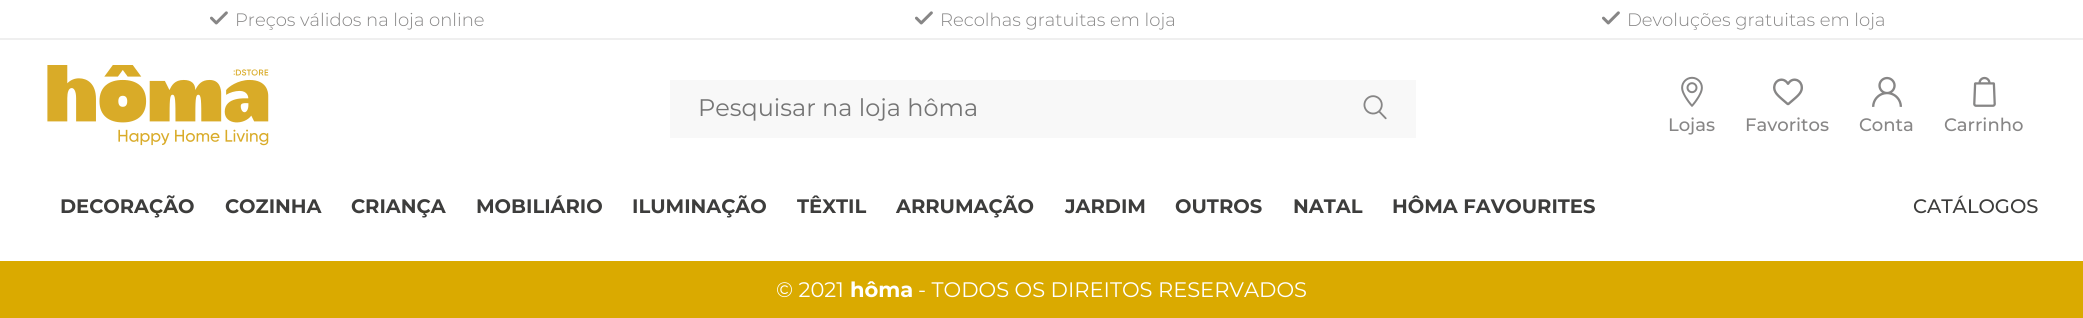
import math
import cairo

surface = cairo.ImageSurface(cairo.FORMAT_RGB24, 2083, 318)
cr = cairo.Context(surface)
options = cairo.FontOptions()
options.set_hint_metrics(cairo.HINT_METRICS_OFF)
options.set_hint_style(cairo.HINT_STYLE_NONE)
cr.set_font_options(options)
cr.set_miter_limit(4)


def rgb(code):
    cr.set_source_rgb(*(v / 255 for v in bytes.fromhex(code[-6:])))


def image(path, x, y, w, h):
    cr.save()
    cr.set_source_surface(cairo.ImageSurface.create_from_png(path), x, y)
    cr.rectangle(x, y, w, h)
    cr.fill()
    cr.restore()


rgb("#ffffff")
cr.paint()
rgb("#efefef")
cr.rectangle(0, 38, 2083, 2)
cr.fill()
image("img/1.png", 210, 11, 18, 14)
image("img/1.png", 915, 11, 18, 14)
image("img/1.png", 1602, 11, 18, 14)
image("img/2.png", 47, 65, 222, 81)
rgb("#f8f8f8")
cr.rectangle(670, 80, 746, 58)
cr.fill()
image("img/3.png", 1363, 95, 24, 25)
image("img/4.png", 1681, 76, 22, 31)
image("img/5.png", 1773, 78, 30, 28)
image("img/6.png", 1872, 76, 30, 31)
image("img/7.png", 1973, 76, 23, 31)
rgb("#daaa00")
cr.rectangle(0, 261, 2083, 57)
cr.fill()
cr.select_font_face("Montserrat Light")
cr.set_font_size(18)
rgb("#878686")
for x, y, s in [
    (235, 26, "Preços válidos na loja online"),
    (940, 26, "Recolhas gratuitas em loja"),
    (1627, 26, "Devoluções gratuitas em loja"),
]:
    cr.move_to(x, y)
    cr.show_text(s)
cr.select_font_face("Montserrat")
cr.set_font_size(24)
rgb("#757575")
cr.move_to(698, 116)
cr.show_text("Pesquisar na loja hôma")
cr.select_font_face("Montserrat Medium")
cr.set_font_size(18)
rgb("#878686")
for x, y, s in [
    (1668, 131, "Lojas"),
    (1745, 131, "Favoritos"),
    (1859, 131, "Conta"),
    (1944, 131, "Carrinho"),
]:
    cr.move_to(x, y)
    cr.show_text(s)
cr.select_font_face("Montserrat", cairo.FONT_SLANT_NORMAL, cairo.FONT_WEIGHT_BOLD)
cr.set_font_size(19.5)
rgb("#3d3d3c")
for x, y, s in [
    (60, 213, "DECORAÇÃO"),
    (225, 213, "COZINHA"),
    (351, 213, "CRIANÇA"),
    (476, 213, "MOBILIÁRIO"),
    (632, 213, "ILUMINAÇÃO"),
    (797, 213, "TÊXTIL"),
    (896, 213, "ARRUMAÇÃO"),
    (1065, 213, "JARDIM"),
    (1175, 213, "OUTROS"),
    (1293, 213, "NATAL"),
    (1392, 213, "HÔMA FAVOURITES"),
]:
    cr.move_to(x, y)
    cr.show_text(s)
cr.select_font_face("Montserrat Medium")
cr.move_to(1913, 213)
cr.show_text("CATÁLOGOS")
cr.select_font_face("Montserrat")
cr.set_font_size(21)
rgb("#ffffff")
cr.move_to(776, 297)
cr.show_text("© 2021")
cr.select_font_face("Montserrat", cairo.FONT_SLANT_NORMAL, cairo.FONT_WEIGHT_BOLD)
cr.move_to(850, 297)
cr.show_text("hôma")
cr.select_font_face("Montserrat")
cr.move_to(918, 297)
cr.show_text("- TODOS OS DIREITOS RESERVADOS")
surface.write_to_png("page.png")
